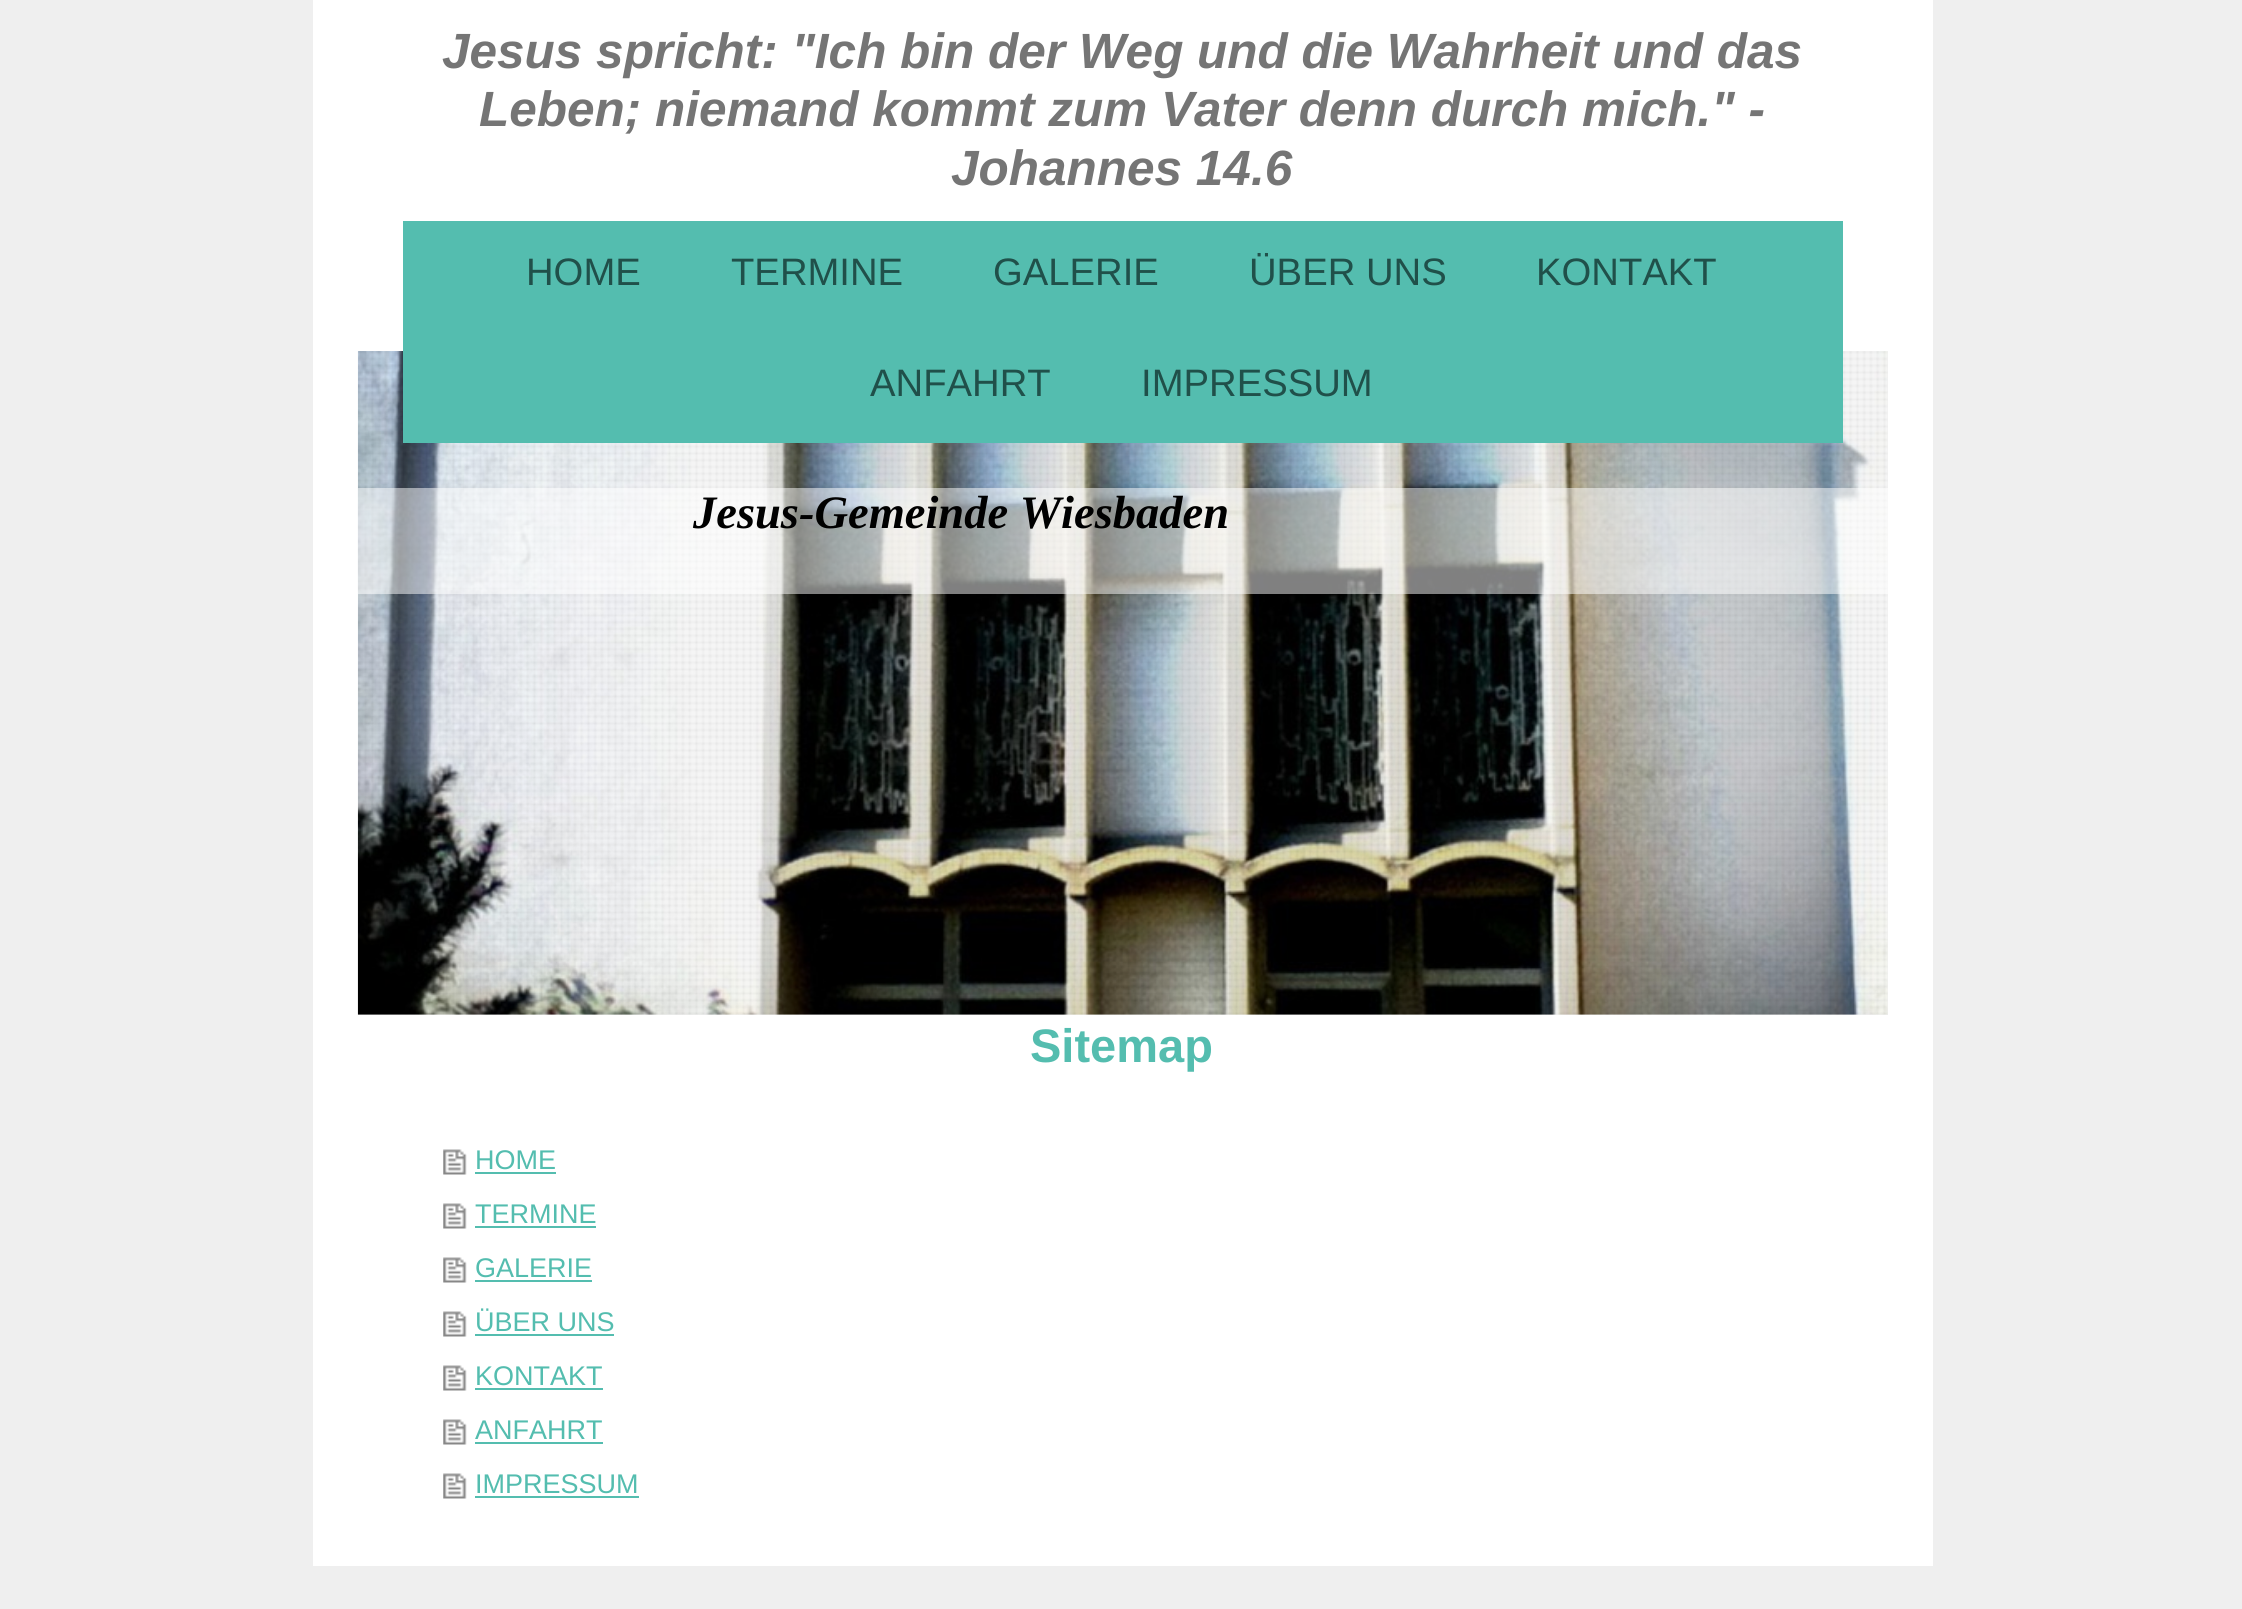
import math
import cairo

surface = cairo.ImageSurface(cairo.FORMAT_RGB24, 2242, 1609)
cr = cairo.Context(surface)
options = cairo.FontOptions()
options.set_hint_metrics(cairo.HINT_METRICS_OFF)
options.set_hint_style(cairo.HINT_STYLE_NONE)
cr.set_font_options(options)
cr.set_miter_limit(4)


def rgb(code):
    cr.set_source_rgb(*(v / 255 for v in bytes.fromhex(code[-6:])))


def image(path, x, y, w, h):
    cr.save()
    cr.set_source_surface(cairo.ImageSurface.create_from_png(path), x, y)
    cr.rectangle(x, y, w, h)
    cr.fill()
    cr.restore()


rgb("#efefef")
cr.paint()
rgb("#ffffff")
cr.rectangle(313, 0, 1620, 1566)
cr.fill()
rgb("#eeeeee")
cr.rectangle(358, 351, 1530, 664)
cr.fill()
image("img/1.png", 357, 351, 1531, 664)
image("img/2.png", 358, 351, 1530, 664)
rgb("#54bdaf")
cr.rectangle(403, 221, 1440, 222)
cr.fill()
cr.set_source_rgba(1, 1, 1, 0.5)
cr.rectangle(358, 488, 1530, 106)
cr.fill()
image("img/3.png", 443, 1149, 24, 26)
rgb("#54bdaf")
cr.rectangle(475, 1172, 81, 2)
cr.fill()
image("img/4.png", 443, 1203, 24, 26)
cr.rectangle(475, 1226, 121, 2)
cr.fill()
image("img/4.png", 443, 1257, 24, 26)
cr.rectangle(475, 1280, 117, 2)
cr.fill()
image("img/4.png", 443, 1311, 24, 26)
cr.rectangle(475, 1334, 139, 2)
cr.fill()
image("img/4.png", 443, 1365, 24, 26)
cr.rectangle(475, 1388, 128, 2)
cr.fill()
image("img/4.png", 443, 1419, 24, 26)
cr.rectangle(475, 1442, 128, 2)
cr.fill()
image("img/4.png", 443, 1473, 24, 26)
cr.rectangle(475, 1496, 164, 2)
cr.fill()
cr.select_font_face("Liberation Sans", cairo.FONT_SLANT_ITALIC, cairo.FONT_WEIGHT_BOLD)
cr.set_font_size(49.5)
rgb("#757575")
for x, y, s in [
    (442, 68, "Jesus spricht: \"Ich bin der Weg und die Wahrheit und das"),
    (479, 126, "Leben; niemand kommt zum Vater denn durch mich.\" -"),
    (951, 185, "Johannes 14.6"),
]:
    cr.move_to(x, y)
    cr.show_text(s)
cr.select_font_face("Liberation Sans")
cr.set_font_size(38.25)
rgb("#20504a")
for x, y, s in [
    (526, 285, "HOME"),
    (731, 285, "TERMINE"),
    (993, 285, "GALERIE"),
    (1249, 285, "ÜBER UNS"),
    (1536, 285, "KONTAKT"),
    (870, 396, "ANFAHRT"),
    (1141, 396, "IMPRESSUM"),
]:
    cr.move_to(x, y)
    cr.show_text(s)
cr.select_font_face("Liberation Serif", cairo.FONT_SLANT_ITALIC, cairo.FONT_WEIGHT_BOLD)
cr.set_font_size(46.5)
rgb("#000000")
cr.move_to(693, 528)
cr.show_text("Jesus-Gemeinde Wiesbaden")
cr.select_font_face("Liberation Sans", cairo.FONT_SLANT_NORMAL, cairo.FONT_WEIGHT_BOLD)
cr.set_font_size(47)
rgb("#54bdaf")
cr.move_to(1030, 1062)
cr.show_text("Sitemap")
cr.select_font_face("Liberation Sans")
cr.set_font_size(27)
for x, y, s in [
    (475, 1169, "HOME"),
    (475, 1223, "TERMINE"),
    (475, 1277, "GALERIE"),
    (475, 1331, "ÜBER UNS"),
    (475, 1385, "KONTAKT"),
    (475, 1439, "ANFAHRT"),
    (475, 1493, "IMPRESSUM"),
]:
    cr.move_to(x, y)
    cr.show_text(s)
surface.write_to_png("page.png")
